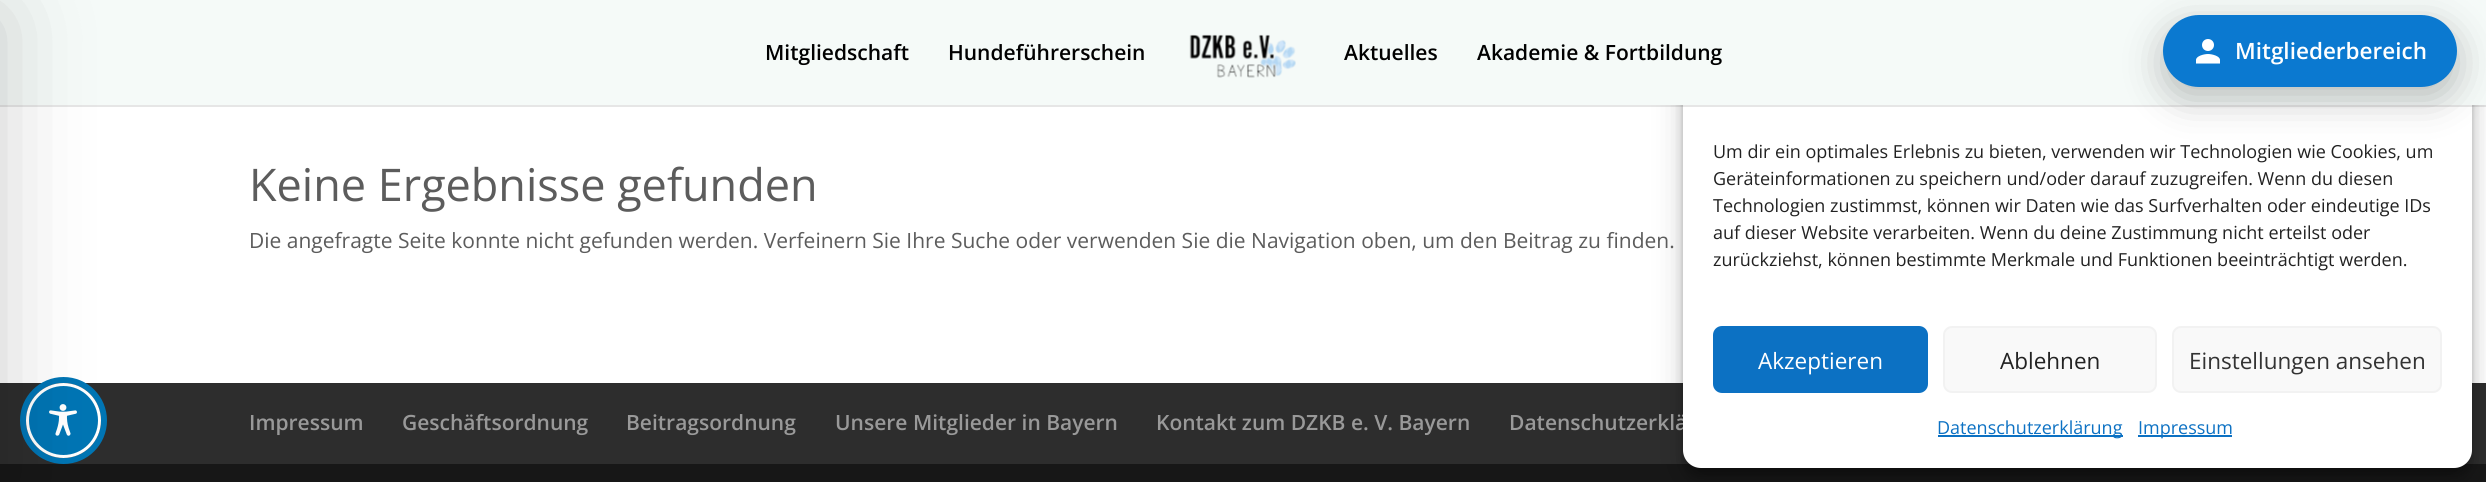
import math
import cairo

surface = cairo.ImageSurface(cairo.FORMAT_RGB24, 2486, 482)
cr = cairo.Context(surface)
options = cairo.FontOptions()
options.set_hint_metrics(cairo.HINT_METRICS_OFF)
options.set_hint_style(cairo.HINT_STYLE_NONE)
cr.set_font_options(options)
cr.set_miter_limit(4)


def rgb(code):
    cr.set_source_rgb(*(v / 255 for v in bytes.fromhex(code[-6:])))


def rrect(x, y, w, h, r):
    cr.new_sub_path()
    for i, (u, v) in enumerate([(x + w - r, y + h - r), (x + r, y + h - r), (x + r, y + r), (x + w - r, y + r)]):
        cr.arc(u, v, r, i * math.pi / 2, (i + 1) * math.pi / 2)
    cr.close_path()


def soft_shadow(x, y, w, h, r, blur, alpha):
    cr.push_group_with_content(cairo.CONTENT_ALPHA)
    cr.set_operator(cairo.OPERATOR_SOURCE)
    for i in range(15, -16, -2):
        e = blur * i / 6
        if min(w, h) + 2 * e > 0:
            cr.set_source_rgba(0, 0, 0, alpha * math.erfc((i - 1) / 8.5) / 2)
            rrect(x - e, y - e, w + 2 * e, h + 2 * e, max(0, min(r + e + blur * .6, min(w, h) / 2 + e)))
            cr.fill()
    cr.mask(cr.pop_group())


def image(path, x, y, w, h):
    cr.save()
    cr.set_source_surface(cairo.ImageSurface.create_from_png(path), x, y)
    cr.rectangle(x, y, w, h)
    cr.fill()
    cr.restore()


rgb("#ffffff")
cr.paint()
rgb("#2d2d2d")
cr.rectangle(0, 383, 2486, 81)
cr.fill()
rgb("#171717")
cr.rectangle(0, 464, 2486, 18)
cr.fill()
cr.arc(63.5, 420.5, 40.5, 0, 2 * math.pi)
rgb("#0075b4")
cr.set_line_width(6)
cr.stroke()
cr.arc(63.5, 420.5, 36, 0, 2 * math.pi)
cr.fill_preserve()
rgb("#ffffff")
cr.set_line_width(3)
cr.stroke()
image("img/3.png", 49, 404, 28, 32)
rgb("#000000")
soft_shadow(1683, 59, 789, 418, 18, 4.5, 0.23)
soft_shadow(1683, 65, 789, 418, 18, 15, 0.19)
cr.select_font_face("Open Sans")
cr.set_font_size(45)
rgb("#5c5c5c")
cr.move_to(249, 201)
cr.show_text("Keine Ergebnisse gefunden")
cr.set_font_size(21)
cr.move_to(249, 248)
cr.show_text("Die angefragte Seite konnte nicht gefunden werden. Verfeinern Sie Ihre Suche oder verwenden Sie die Navigation oben, um den Beitrag zu finden.")
cr.select_font_face("Open Sans SemiBold")
rgb("#999999")
for x, y, s in [
    (249, 430, "Impressum"),
    (402, 430, "Geschäftsordnung"),
    (626, 430, "Beitragsordnung"),
    (835, 430, "Unsere Mitglieder in Bayern"),
    (1156, 430, "Kontakt zum DZKB e. V. Bayern"),
    (1509, 430, "Datenschutzerklä"),
]:
    cr.move_to(x, y)
    cr.show_text(s)
rgb("#ffffff")
rrect(1683, 50, 789, 418, 18)
cr.fill()
rgb("#f5faf8")
cr.rectangle(0, 0, 2486, 105)
cr.fill()
cr.set_source_rgba(0, 0, 0, 0.1)
cr.rectangle(0, 105, 2486, 2)
cr.fill()
rgb("#000000")
soft_shadow(-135, 15, 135, 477, 0, 45, 0.2)
soft_shadow(2163, 27, 294, 72, 36, 19, 0.25)
rgb("#0b79d0")
rrect(2163, 15, 294, 72, 36)
cr.fill()
image("img/2.png", 2196, 39, 24, 25)
cr.set_font_size(22.5)
rgb("#ffffff")
cr.move_to(2235, 59)
cr.show_text("Mitgliederbereich")
cr.set_font_size(21)
rgb("#010101")
for x, y, s in [
    (1477, 60, "Akademie & Fortbildung"),
    (1344, 60, "Aktuelles"),
    (948, 60, "Hundeführerschein"),
    (765, 60, "Mitgliedschaft"),
]:
    cr.move_to(x, y)
    cr.show_text(s)
image("img/1.png", 1189, 34, 107, 44)
cr.select_font_face("Open Sans")
cr.set_font_size(18)
rgb("#222222")
for x, y, s in [
    (1713, 158, "Um dir ein optimales Erlebnis zu bieten, verwenden wir Technologien wie Cookies, um"),
    (1713, 185, "Geräteinformationen zu speichern und/oder darauf zuzugreifen. Wenn du diesen"),
    (1713, 212, "Technologien zustimmst, können wir Daten wie das Surfverhalten oder eindeutige IDs"),
    (1713, 239, "auf dieser Website verarbeiten. Wenn du deine Zustimmung nicht erteilst oder"),
    (1713, 266, "zurückziehst, können bestimmte Merkmale und Funktionen beeinträchtigt werden."),
]:
    cr.move_to(x, y)
    cr.show_text(s)
rgb("#0c71c3")
rrect(1714, 327, 213, 65, 8)
cr.fill_preserve()
cr.set_line_width(2)
cr.stroke()
cr.set_font_size(22.5)
rgb("#ffffff")
cr.move_to(1758, 369)
cr.show_text("Akzeptieren")
rgb("#f9f9f9")
rrect(1944, 327, 212, 65, 8)
cr.fill_preserve()
rgb("#f2f2f2")
cr.stroke()
rgb("#222222")
cr.move_to(2000, 369)
cr.show_text("Ablehnen")
rgb("#f9f9f9")
rrect(2173, 327, 268, 65, 8)
cr.fill_preserve()
rgb("#f2f2f2")
cr.stroke()
rgb("#333333")
cr.move_to(2189, 369)
cr.show_text("Einstellungen ansehen")
rgb("#0c71c3")
cr.rectangle(1938, 435, 185, 2)
cr.fill()
cr.set_font_size(18)
cr.move_to(1937, 434)
cr.show_text("Datenschutzerklärung")
cr.rectangle(2138, 435, 94, 2)
cr.fill()
cr.move_to(2138, 434)
cr.show_text("Impressum")
surface.write_to_png("page.png")
